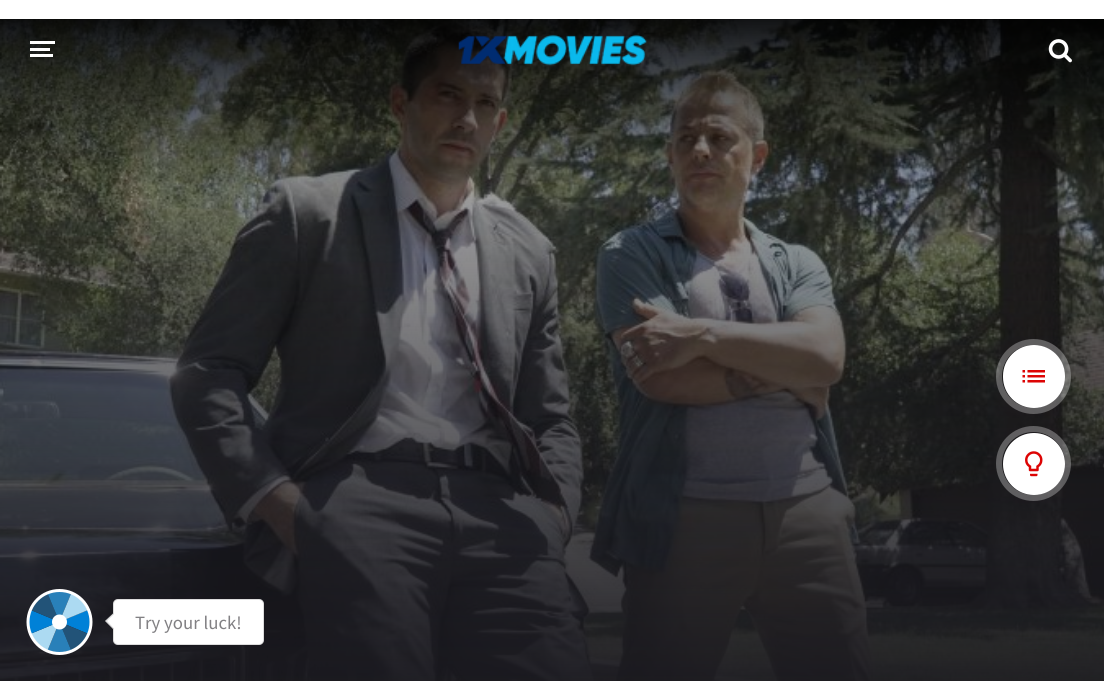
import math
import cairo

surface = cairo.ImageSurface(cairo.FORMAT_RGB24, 1104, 681)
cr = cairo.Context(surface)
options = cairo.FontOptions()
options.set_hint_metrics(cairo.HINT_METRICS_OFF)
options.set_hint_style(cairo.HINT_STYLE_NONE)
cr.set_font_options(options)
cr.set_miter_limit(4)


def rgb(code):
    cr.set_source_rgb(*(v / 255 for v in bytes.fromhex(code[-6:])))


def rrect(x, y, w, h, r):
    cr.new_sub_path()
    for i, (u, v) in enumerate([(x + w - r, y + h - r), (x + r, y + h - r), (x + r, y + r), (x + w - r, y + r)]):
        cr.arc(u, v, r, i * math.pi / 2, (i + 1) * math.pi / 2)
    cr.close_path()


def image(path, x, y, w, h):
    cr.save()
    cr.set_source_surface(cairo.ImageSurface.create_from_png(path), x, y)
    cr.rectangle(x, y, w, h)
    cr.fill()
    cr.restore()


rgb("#ffffff")
cr.paint()
image("img/1.png", 0, 19, 1104, 662)
cr.arc(1033.5, 376.5, 34.5, 0, 2 * math.pi)
cr.set_source_rgba(1, 1, 1, 0.3)
cr.set_line_width(6)
cr.stroke()
rgb("#ffffff")
rrect(1003, 345, 62, 63, 31)
cr.fill()
image("img/2.png", 1022, 370, 23, 13)
cr.arc(1033.5, 463.5, 34.5, 0, 2 * math.pi)
cr.set_source_rgba(1, 1, 1, 0.3)
cr.stroke()
rgb("#ffffff")
cr.arc(1034, 464, 31, 0, 2 * math.pi)
cr.fill()
image("img/3.png", 1025, 451, 18, 26)
for x, y, w, h, color in [
    (30, 41, 25, 3, "#ffffff"),
    (30, 48, 20, 3, "#ffffff"),
    (30, 54, 23, 3, "#ffffff"),
]:
    rgb(color)
    cr.rectangle(x, y, w, h)
    cr.fill()
image("img/4.png", 458, 34, 189, 32)
image("img/5.png", 1048, 39, 24, 24)
image("img/6.png", 29, 592, 61, 60)
cr.arc(59.5, 622, 31.5, 0, 2 * math.pi)
cr.set_line_width(3)
cr.stroke()
cr.arc(59.5, 622, 7.5, 0, 2 * math.pi)
cr.fill()
rrect(113, 599, 151, 46, 5)
cr.fill()
rrect(113.5, 599.5, 150, 45, 4.5)
cr.set_source_rgba(0, 0, 0, 0.14)
cr.set_line_width(1)
cr.stroke()
rgb("#ffffff")
cr.new_path()
cr.move_to(113, 613.5)
cr.line_to(121, 621)
cr.line_to(113, 629)
cr.line_to(105, 621)
cr.close_path()
cr.fill()
cr.set_source_rgba(0, 0, 0, 0.16)
cr.new_path()
cr.move_to(113, 629)
cr.line_to(105, 621)
cr.line_to(107, 621)
cr.line_to(114, 628.5)
cr.close_path()
cr.move_to(105, 621)
cr.line_to(113, 613.5)
cr.line_to(114, 614)
cr.line_to(107, 621)
cr.close_path()
cr.fill()
cr.select_font_face("Source Sans Pro")
cr.set_font_size(18.75)
rgb("#818083")
cr.move_to(135, 629)
cr.show_text("Try your luck!")
surface.write_to_png("page.png")
